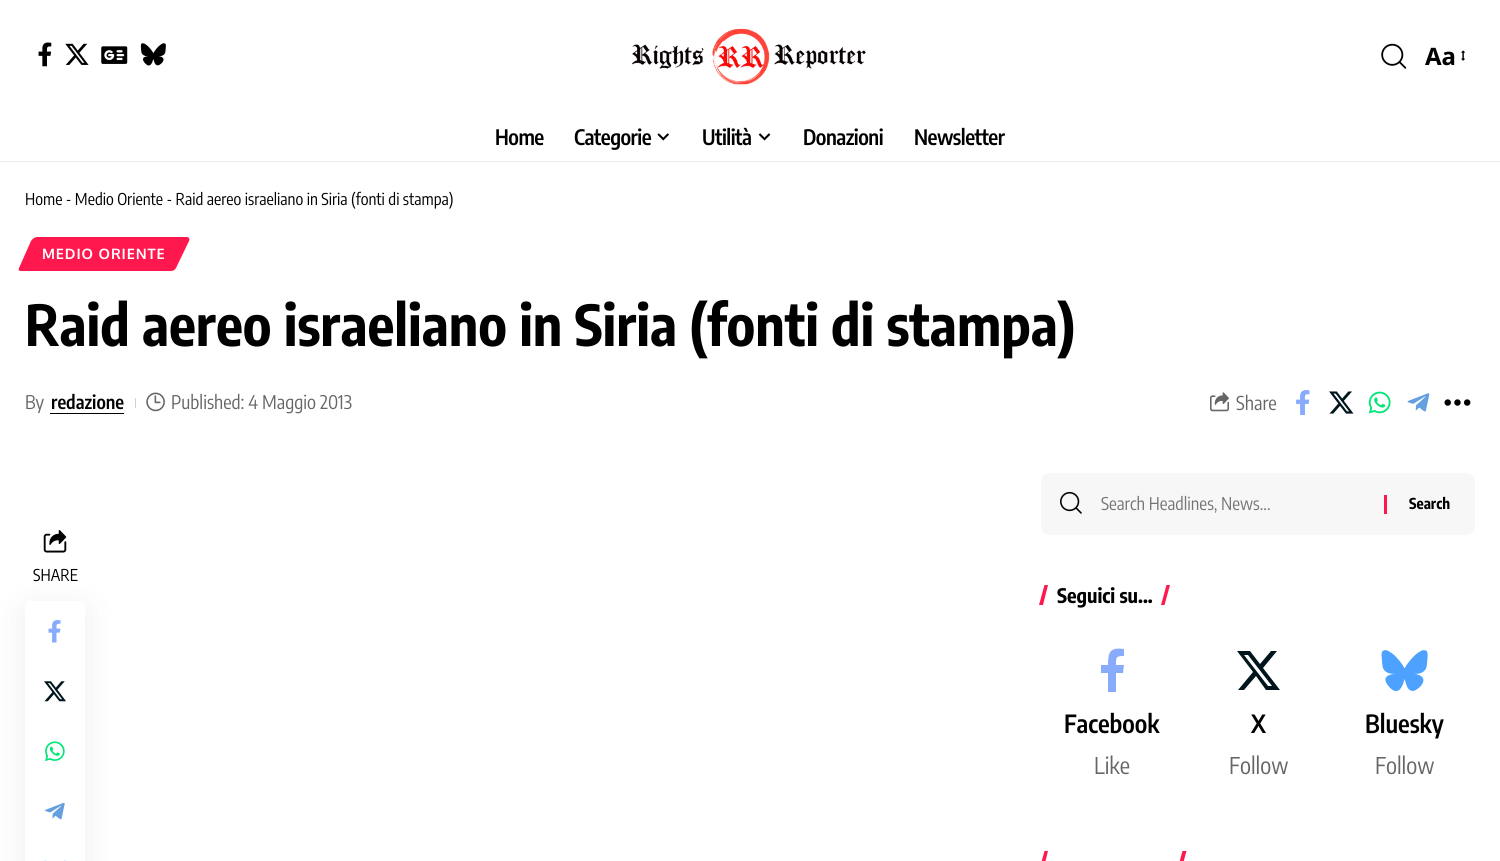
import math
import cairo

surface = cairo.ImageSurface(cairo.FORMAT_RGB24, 1500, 861)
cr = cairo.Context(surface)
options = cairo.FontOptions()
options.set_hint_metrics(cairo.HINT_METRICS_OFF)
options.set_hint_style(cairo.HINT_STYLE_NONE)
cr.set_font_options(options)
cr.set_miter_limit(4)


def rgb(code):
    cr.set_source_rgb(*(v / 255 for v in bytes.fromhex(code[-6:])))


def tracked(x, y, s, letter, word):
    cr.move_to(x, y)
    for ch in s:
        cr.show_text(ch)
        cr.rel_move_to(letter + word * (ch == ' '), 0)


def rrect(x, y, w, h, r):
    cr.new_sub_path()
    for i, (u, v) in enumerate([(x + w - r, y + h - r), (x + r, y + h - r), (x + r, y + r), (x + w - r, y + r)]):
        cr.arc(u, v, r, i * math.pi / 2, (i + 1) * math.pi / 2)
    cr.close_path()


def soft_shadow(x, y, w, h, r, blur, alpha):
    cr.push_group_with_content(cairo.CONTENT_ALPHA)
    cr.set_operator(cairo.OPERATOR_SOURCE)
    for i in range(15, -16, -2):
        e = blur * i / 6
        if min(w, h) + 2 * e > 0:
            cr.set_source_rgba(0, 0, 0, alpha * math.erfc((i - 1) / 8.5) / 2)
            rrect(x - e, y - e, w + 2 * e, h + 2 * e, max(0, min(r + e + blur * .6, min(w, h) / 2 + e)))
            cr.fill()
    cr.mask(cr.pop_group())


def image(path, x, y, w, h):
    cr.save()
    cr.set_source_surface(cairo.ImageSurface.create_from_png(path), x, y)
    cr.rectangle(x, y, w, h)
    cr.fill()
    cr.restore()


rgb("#ffffff")
cr.paint()
image("img/1.png", 38, 42, 14, 25)
image("img/2.png", 65, 43, 24, 22)
image("img/3.png", 101, 46, 27, 18)
image("img/4.png", 140, 43, 26, 23)
image("img/5.png", 632, 28, 234, 57)
image("img/6.png", 1381, 43, 26, 26)
image("img/7.png", 1461, 50, 4, 11)
image("img/8.png", 657, 133, 12, 8)
image("img/9.png", 758, 133, 13, 8)
rgb("#ededed")
cr.rectangle(0, 161, 1500, 1)
cr.fill()
rgb("#ff184e")
cr.new_path()
cr.move_to(37, 237)
cr.line_to(187, 237)
cr.curve_to(189, 237, 190, 239, 189, 241)
cr.line_to(176, 268)
cr.curve_to(175, 270, 173, 271, 171, 271)
cr.line_to(21, 271)
cr.curve_to(19, 271, 18, 270, 19, 268)
cr.line_to(31, 241)
cr.curve_to(32, 239, 35, 237, 37, 237)
cr.close_path()
cr.fill()
rgb("#000000")
cr.rectangle(50, 413, 74, 1)
cr.fill()
rgb("#d1d1d1")
cr.rectangle(135, 398, 1, 10)
cr.fill()
image("img/10.png", 146, 392, 19, 20)
image("img/11.png", 1210, 392, 19, 20)
image("img/12.png", 1296, 390, 14, 25)
image("img/13.png", 1329, 391, 25, 23)
image("img/14.png", 1368, 391, 23, 23)
image("img/15.png", 1407, 393, 23, 19)
image("img/16.png", 1444, 399, 27, 7)
image("img/22.png", 43, 530, 24, 23)
rgb("#000000")
soft_shadow(25, 608, 60, 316, 6, 19, 0.07)
rgb("#ffffff")
rrect(25, 601, 60, 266, 6)
cr.fill()
image("img/17.png", 48, 620, 13, 23)
image("img/18.png", 44, 681, 22, 21)
image("img/19.png", 45, 741, 20, 20)
image("img/20.png", 45, 802, 20, 18)
image("img/21.png", 44, 860, 22, 1)
rgb("#f7f7f7")
rrect(1041, 473, 434, 62, 9)
cr.fill()
image("img/23.png", 1060, 491, 22, 23)
rgb("#ff184e")
cr.rectangle(1384, 495, 3, 19)
cr.fill()
cr.new_path()
cr.move_to(1166.5, 585)
cr.line_to(1170, 585)
cr.line_to(1164.5, 605)
cr.line_to(1161, 605)
cr.close_path()
cr.fill()
cr.new_path()
cr.move_to(1044.5, 585)
cr.line_to(1048, 585)
cr.line_to(1043, 605)
cr.line_to(1039, 605)
cr.close_path()
cr.fill()
rgb("#89abfc")
cr.new_path()
cr.move_to(1123, 673)
cr.line_to(1124, 665)
cr.line_to(1116, 665)
cr.curve_to(1116, 657, 1116, 656, 1124, 656)
cr.line_to(1124, 649)
cr.curve_to(1110, 647, 1108, 652, 1108, 665)
cr.line_to(1101, 665)
cr.line_to(1101, 673)
cr.line_to(1108, 673)
cr.line_to(1108, 692)
cr.line_to(1116, 692)
cr.line_to(1116, 673)
cr.close_path()
cr.fill()
rgb("#00151c")
cr.new_path()
cr.move_to(1271, 651)
cr.line_to(1277, 651)
cr.line_to(1263, 668)
cr.line_to(1280, 690)
cr.line_to(1266, 690)
cr.line_to(1256, 676)
cr.line_to(1244, 690)
cr.line_to(1238, 690)
cr.line_to(1253, 672)
cr.line_to(1237, 651)
cr.line_to(1250, 651)
cr.line_to(1260, 664)
cr.close_path()
cr.move_to(1268, 686)
cr.line_to(1272, 686)
cr.line_to(1248, 655)
cr.line_to(1244, 655)
cr.close_path()
cr.fill()
image("img/24.png", 1381, 650, 47, 42)
rgb("#ff184e")
cr.new_path()
cr.move_to(1182.5, 851)
cr.line_to(1186.5, 851)
cr.line_to(1181, 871)
cr.line_to(1177, 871)
cr.close_path()
cr.fill()
cr.new_path()
cr.move_to(1044.5, 851)
cr.line_to(1048, 851)
cr.line_to(1043, 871)
cr.line_to(1039, 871)
cr.close_path()
cr.fill()
cr.select_font_face("Noto Sans", cairo.FONT_SLANT_NORMAL, cairo.FONT_WEIGHT_BOLD)
cr.set_font_size(24)
rgb("#000000")
cr.move_to(1425, 65)
cr.show_text("Aa")
cr.select_font_face("Encode Sans Condensed SemiBold")
cr.set_font_size(21.25)
for x, y, s in [
    (495, 145, "Home"),
    (574, 145, "Categorie"),
    (702, 145, "Utilità"),
    (803, 145, "Donazioni"),
    (914, 145, "Newsletter"),
]:
    tracked(x, y, s, -0.5, 0)
cr.select_font_face("Encode Sans Condensed")
cr.set_font_size(16.25)
cr.move_to(25, 205)
cr.show_text("Home - Medio Oriente - Raid aereo israeliano in Siria (fonti di stampa)")
cr.select_font_face("Oxygen", cairo.FONT_SLANT_NORMAL, cairo.FONT_WEIGHT_BOLD)
cr.set_font_size(14.4)
rgb("#ffffff")
tracked(42, 259, "MEDIO ORIENTE", 0.9, 0)
cr.select_font_face("Encode Sans Condensed", cairo.FONT_SLANT_NORMAL, cairo.FONT_WEIGHT_BOLD)
cr.set_font_size(56.25)
rgb("#000000")
cr.move_to(25, 346)
cr.show_text("Raid aereo israeliano in Siria (fonti di stampa)")
cr.select_font_face("Encode Sans Condensed")
cr.set_font_size(18.75)
rgb("#666666")
cr.move_to(25, 409)
cr.show_text("By")
cr.select_font_face("Encode Sans Condensed SemiBold")
rgb("#000000")
cr.move_to(51, 409)
cr.show_text("redazione")
cr.select_font_face("Encode Sans Condensed")
rgb("#666666")
cr.move_to(171, 409)
cr.show_text("Published: 4 Maggio 2013")
cr.set_font_size(19)
cr.move_to(1236, 410)
cr.show_text("Share")
cr.set_font_size(16.25)
rgb("#000000")
cr.move_to(33, 581)
cr.show_text("SHARE")
cr.set_font_size(17.5)
rgb("#757575")
cr.move_to(1101, 510)
cr.show_text("Search Headlines, News...")
cr.select_font_face("Encode Sans Condensed", cairo.FONT_SLANT_NORMAL, cairo.FONT_WEIGHT_BOLD)
cr.set_font_size(15)
rgb("#000000")
cr.move_to(1409, 509)
cr.show_text("Search")
cr.set_font_size(20)
cr.move_to(1057, 603)
cr.show_text("Seguici su...")
cr.select_font_face("Encode Sans Condensed SemiBold")
cr.set_font_size(25)
cr.move_to(1064, 733)
cr.show_text("Facebook")
cr.select_font_face("Encode Sans Condensed")
cr.set_font_size(23)
rgb("#666666")
cr.move_to(1094, 774)
cr.show_text("Like")
cr.select_font_face("Encode Sans Condensed SemiBold")
cr.set_font_size(25)
rgb("#000000")
cr.move_to(1251, 733)
cr.show_text("X")
cr.select_font_face("Encode Sans Condensed")
cr.set_font_size(23)
rgb("#666666")
cr.move_to(1229, 774)
cr.show_text("Follow")
cr.select_font_face("Encode Sans Condensed SemiBold")
cr.set_font_size(25)
rgb("#000000")
cr.move_to(1365, 733)
cr.show_text("Bluesky")
cr.select_font_face("Encode Sans Condensed")
cr.set_font_size(23)
rgb("#666666")
cr.move_to(1375, 774)
cr.show_text("Follow")
surface.write_to_png("page.png")
